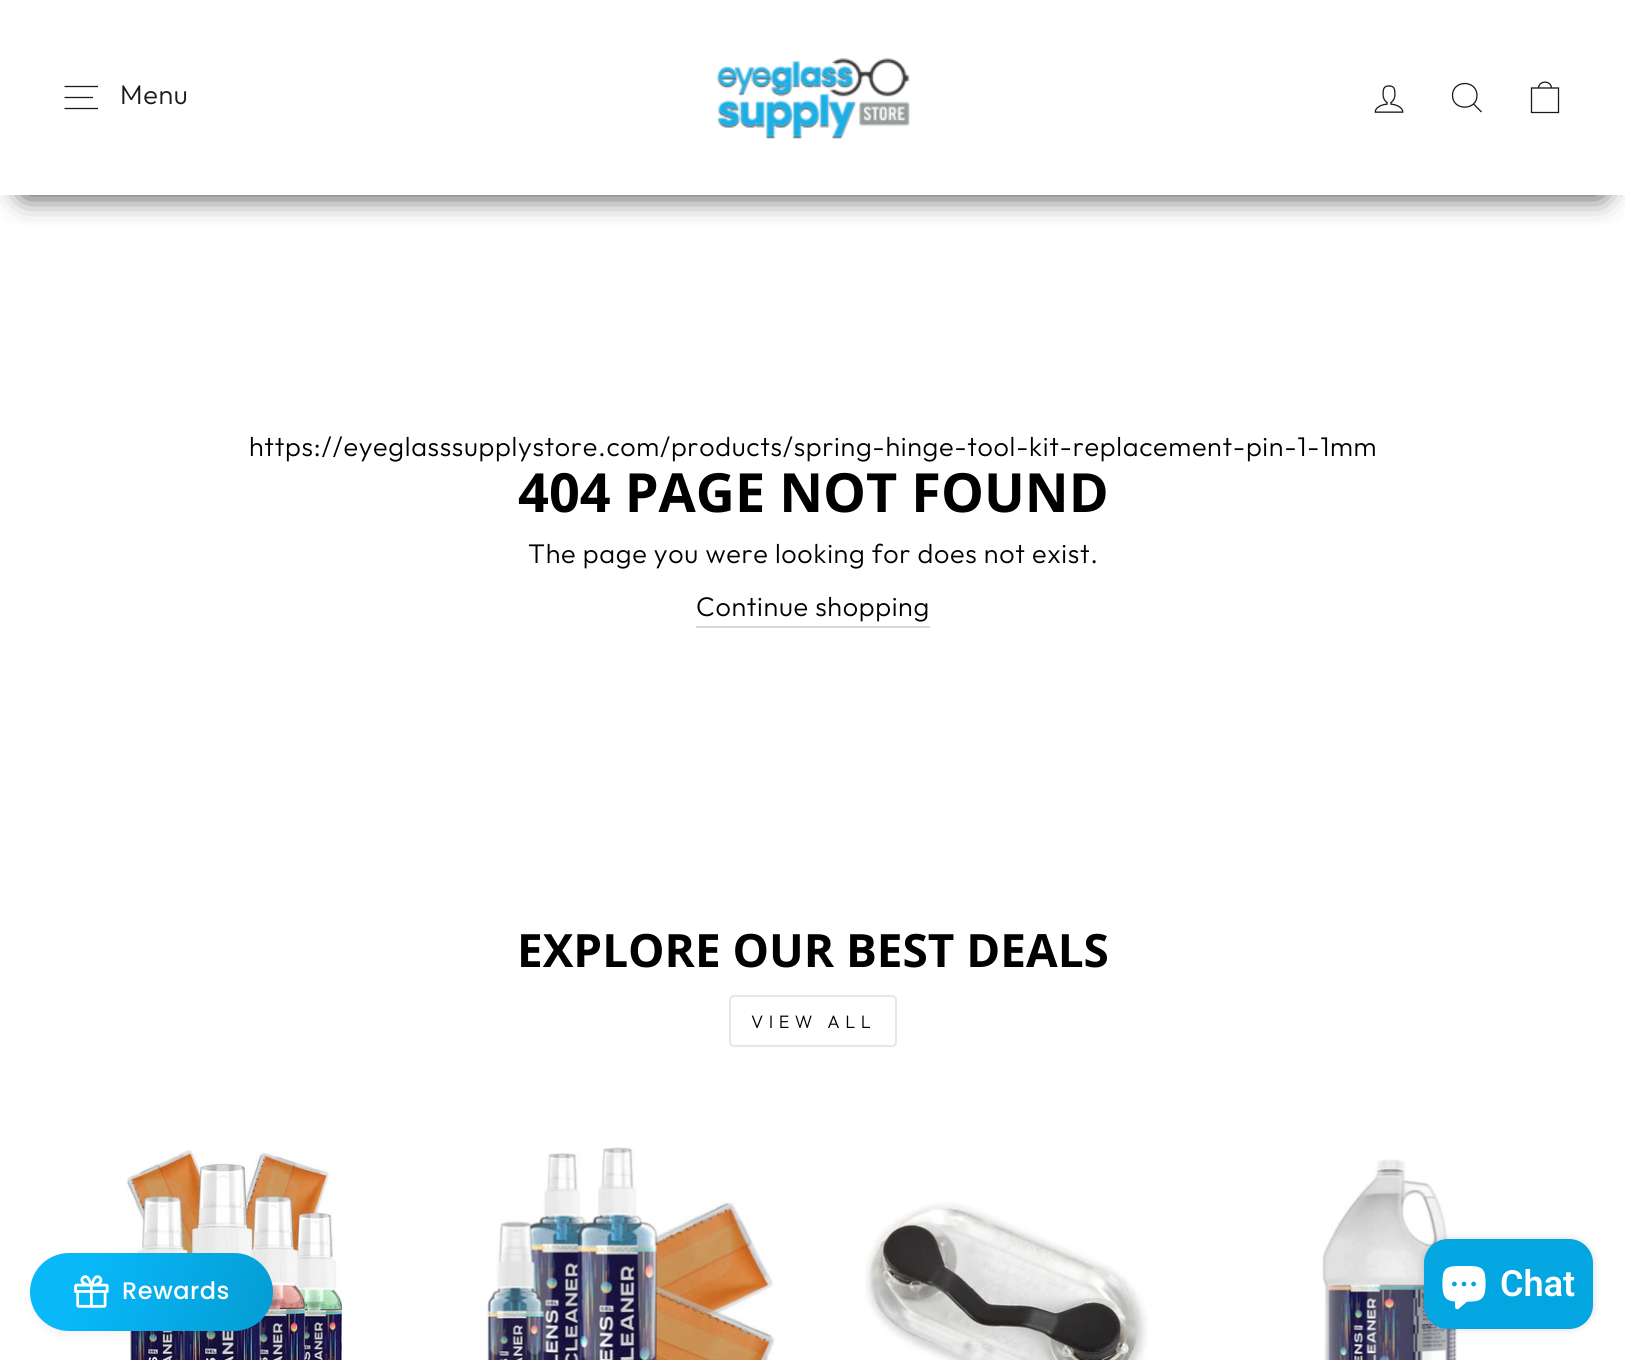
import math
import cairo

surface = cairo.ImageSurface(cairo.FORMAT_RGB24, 1625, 1360)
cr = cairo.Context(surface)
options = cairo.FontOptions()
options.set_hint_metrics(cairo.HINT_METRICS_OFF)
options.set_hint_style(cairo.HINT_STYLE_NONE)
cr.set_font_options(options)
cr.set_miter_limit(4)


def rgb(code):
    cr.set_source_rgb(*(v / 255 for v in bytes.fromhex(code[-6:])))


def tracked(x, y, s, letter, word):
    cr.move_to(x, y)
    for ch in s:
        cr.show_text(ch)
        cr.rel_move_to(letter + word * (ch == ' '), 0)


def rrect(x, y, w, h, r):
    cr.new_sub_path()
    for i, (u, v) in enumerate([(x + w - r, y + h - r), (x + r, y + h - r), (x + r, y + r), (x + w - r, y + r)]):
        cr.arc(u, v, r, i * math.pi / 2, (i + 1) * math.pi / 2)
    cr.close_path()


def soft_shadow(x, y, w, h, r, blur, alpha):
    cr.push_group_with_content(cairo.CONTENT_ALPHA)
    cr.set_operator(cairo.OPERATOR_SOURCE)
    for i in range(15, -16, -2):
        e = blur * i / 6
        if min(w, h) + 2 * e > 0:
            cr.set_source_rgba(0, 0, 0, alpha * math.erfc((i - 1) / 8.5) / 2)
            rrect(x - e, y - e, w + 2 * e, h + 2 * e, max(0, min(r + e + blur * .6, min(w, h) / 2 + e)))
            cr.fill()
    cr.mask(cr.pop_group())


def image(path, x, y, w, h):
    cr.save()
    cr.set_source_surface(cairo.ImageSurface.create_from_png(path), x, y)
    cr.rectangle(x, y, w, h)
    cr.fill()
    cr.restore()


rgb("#ffffff")
cr.paint()
cr.save()
cr.rectangle(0, 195, 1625, 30)
cr.clip()
rgb("#292929")
soft_shadow(24, 47, 1578, 147, 0, 15, 1)
cr.restore()
cr.new_path()
cr.move_to(64.5, 86.5)
cr.line_to(98, 86.5)
cr.move_to(64.5, 97.5)
cr.line_to(93, 97.5)
cr.move_to(64.5, 108.5)
cr.line_to(98, 108.5)
rgb("#1a1a1a")
cr.set_line_width(1.3)
cr.stroke()
image("img/1.png", 716, 58, 194, 81)
image("img/2.png", 1374, 85, 30, 28)
cr.new_path()
cr.move_to(1477, 95.5)
cr.curve_to(1477, 111, 1452.5, 111, 1452.5, 95.5)
cr.curve_to(1452.5, 79.5, 1477, 79.5, 1477, 95.5)
cr.close_path()
cr.move_to(1481.5, 112)
cr.line_to(1473.5, 104)
cr.stroke()
cr.new_path()
cr.move_to(1531.5, 88)
cr.line_to(1558.5, 88)
cr.line_to(1558.5, 112.5)
cr.line_to(1531.5, 112.5)
cr.close_path()
cr.move_to(1538.5, 88.5)
cr.curve_to(1538.5, 80, 1551.5, 80, 1551.5, 88.5)
cr.stroke()
rgb("#d9d9d9")
cr.rectangle(696, 626, 234, 2)
cr.fill()
rrect(730, 996, 166, 50, 4)
rgb("#e8e8e1")
cr.set_line_width(2)
cr.stroke()
image("img/3.png", 125, 1150, 219, 210)
image("img/4.png", 486, 1147, 289, 213)
image("img/5.png", 865, 1202, 283, 158)
image("img/6.png", 1322, 1159, 137, 201)
rgb("#444444")
soft_shadow(33, 1262, 237, 72, 36, 6, 0.08)
gradient = cairo.LinearGradient(31, 1249, 368, 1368)
gradient.add_color_stop_rgba(0.17, 0.031, 0.722, 0.976, 1)
gradient.add_color_stop_rgba(1, 0.012, 0.553, 0.749, 1)
cr.set_source(gradient)
rrect(30, 1253, 243, 78, 39)
cr.fill()
image("img/7.png", 74, 1275, 35, 33)
rgb("#000000")
soft_shadow(1424, 1239, 169, 90, 24, 4, 0.15)
rgb("#04a6e1")
rrect(1424, 1239, 169, 90, 24)
cr.fill()
image("img/8.png", 1442, 1266, 44, 44)
cr.select_font_face("Outfit Light")
cr.set_font_size(27)
rgb("#1a1a1a")
tracked(120, 104, "Menu", 0.68, 0)
rgb("#000000")
tracked(249, 456, "https://eyeglasssupplystore.com/products/spring-hinge-tool-kit-replacement-pin-1-1mm", 0.68, 0)
cr.select_font_face("Open Sans", cairo.FONT_SLANT_NORMAL, cairo.FONT_WEIGHT_BOLD)
cr.set_font_size(54)
cr.move_to(518, 512)
cr.show_text("404 PAGE NOT FOUND")
cr.select_font_face("Outfit Light")
cr.set_font_size(27)
tracked(528, 563, "The page you were looking for does not exist.", 0.68, 0)
tracked(696, 616, "Continue shopping", 0.68, 0)
cr.select_font_face("Open Sans", cairo.FONT_SLANT_NORMAL, cairo.FONT_WEIGHT_BOLD)
cr.set_font_size(45.9)
cr.move_to(517, 967)
cr.show_text("EXPLORE OUR BEST DEALS")
cr.select_font_face("Outfit Light")
cr.set_font_size(18)
tracked(751, 1028, "VIEW ALL", 5.5, 0)
cr.select_font_face("Poppins Medium")
cr.set_font_size(24)
rgb("#ffffff")
tracked(122, 1299, "Rewards", 0.5, 0)
cr.select_font_face("Roboto SemiBold")
cr.set_font_size(36)
cr.move_to(1500, 1296)
cr.show_text("Chat")
surface.write_to_png("page.png")
